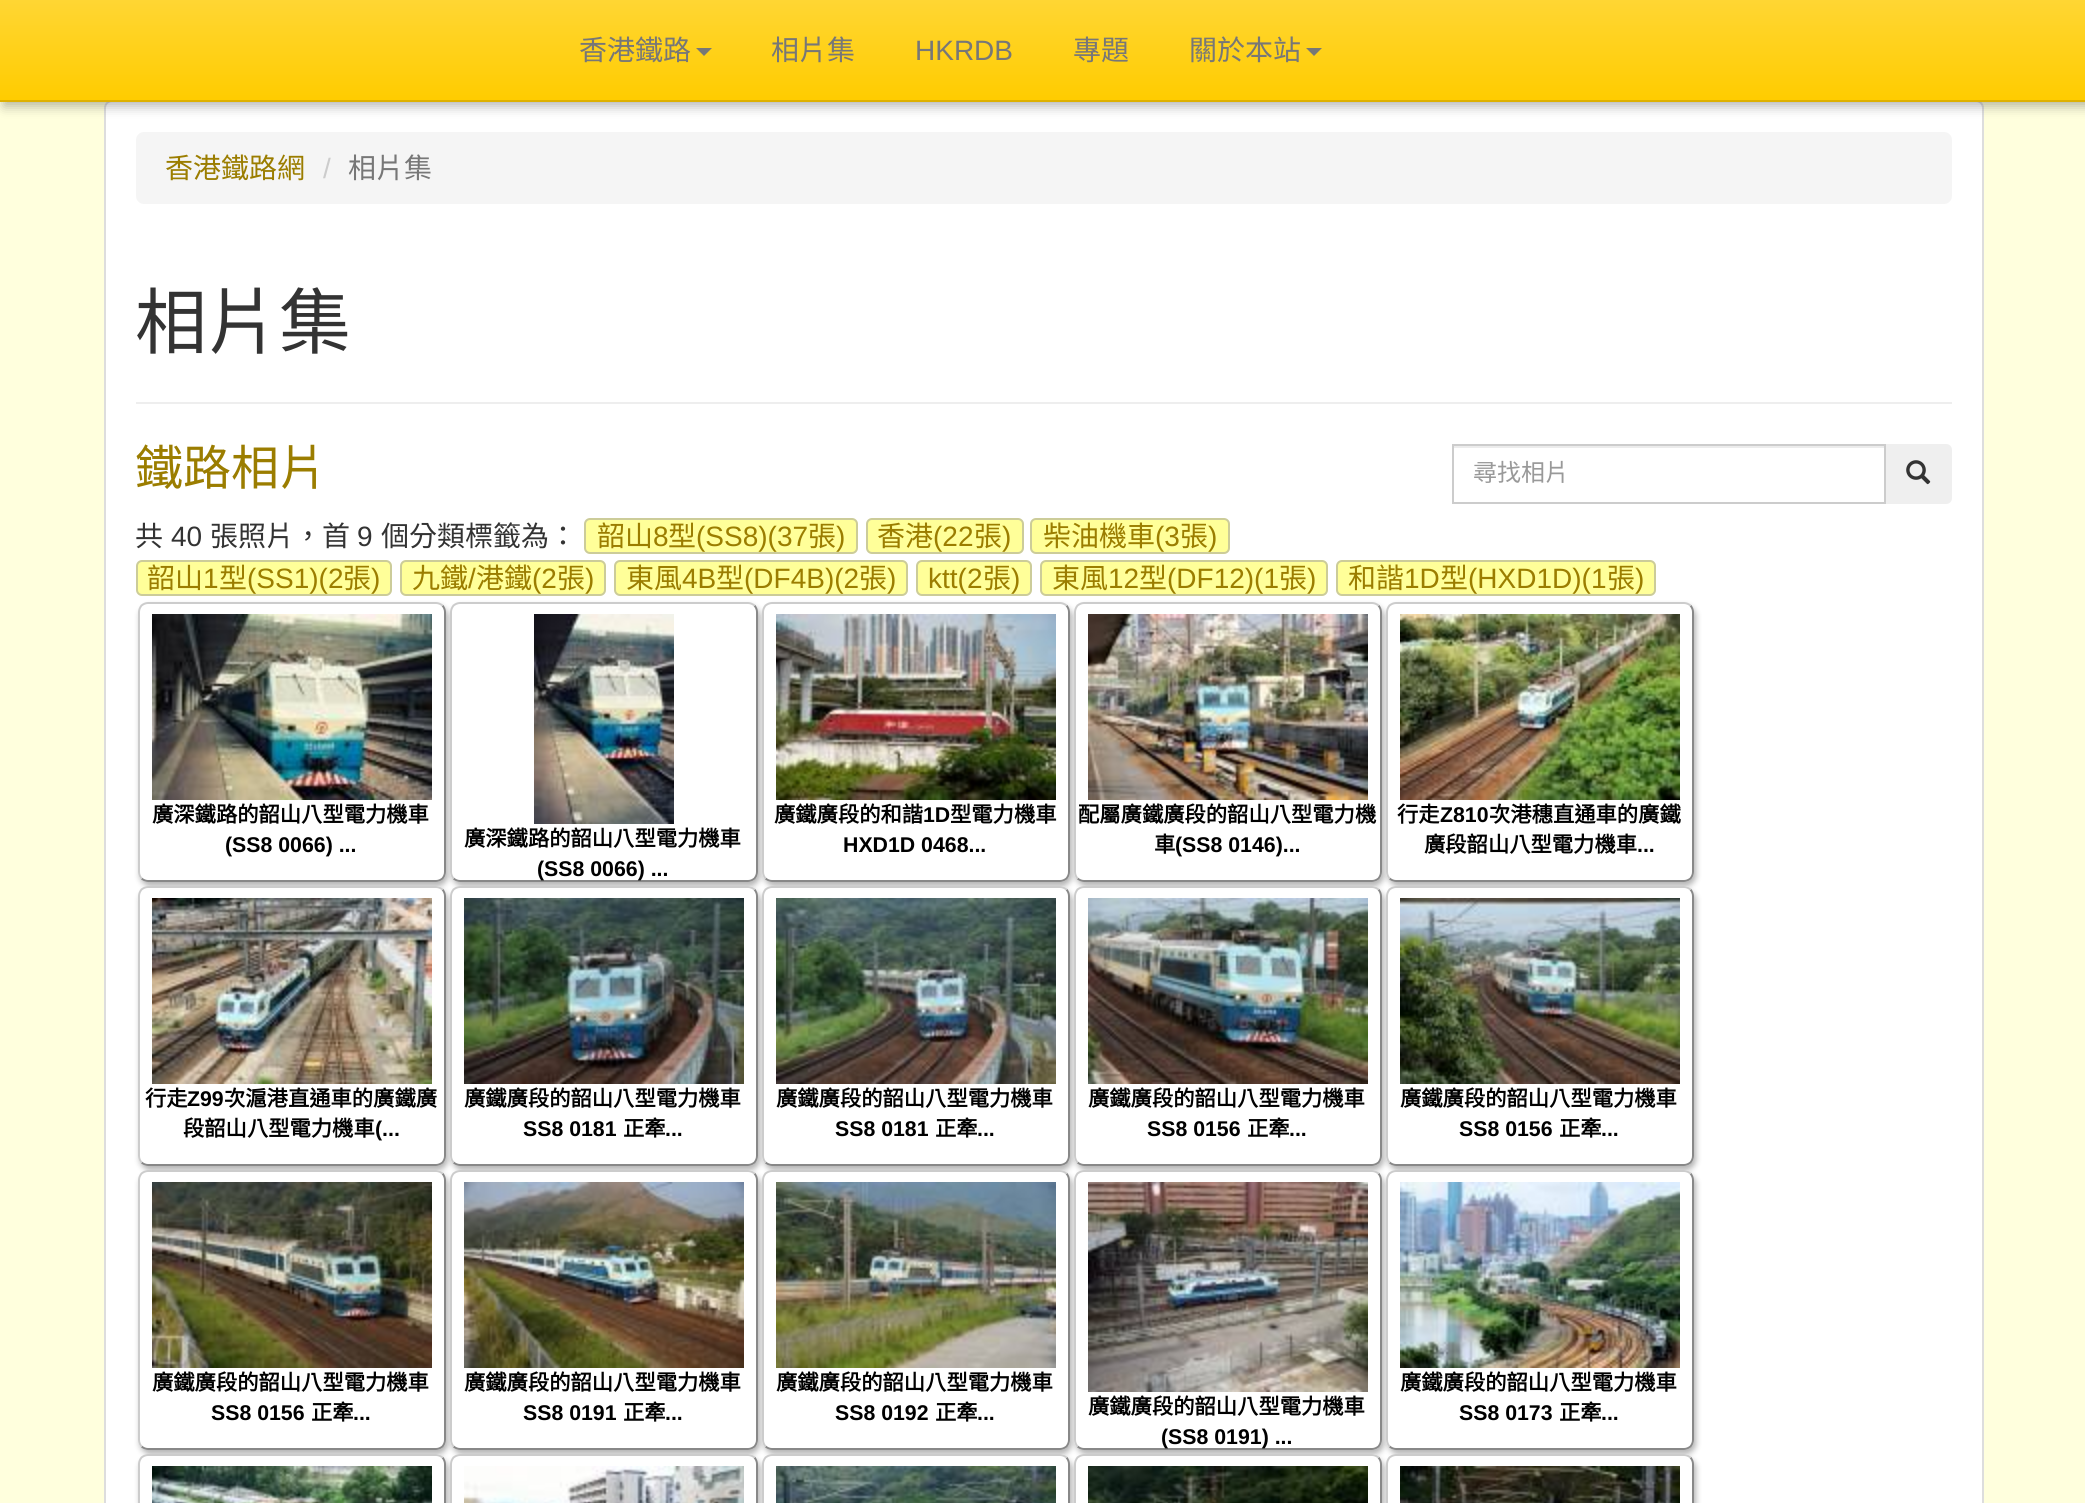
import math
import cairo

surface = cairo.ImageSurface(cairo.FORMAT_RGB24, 2085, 1503)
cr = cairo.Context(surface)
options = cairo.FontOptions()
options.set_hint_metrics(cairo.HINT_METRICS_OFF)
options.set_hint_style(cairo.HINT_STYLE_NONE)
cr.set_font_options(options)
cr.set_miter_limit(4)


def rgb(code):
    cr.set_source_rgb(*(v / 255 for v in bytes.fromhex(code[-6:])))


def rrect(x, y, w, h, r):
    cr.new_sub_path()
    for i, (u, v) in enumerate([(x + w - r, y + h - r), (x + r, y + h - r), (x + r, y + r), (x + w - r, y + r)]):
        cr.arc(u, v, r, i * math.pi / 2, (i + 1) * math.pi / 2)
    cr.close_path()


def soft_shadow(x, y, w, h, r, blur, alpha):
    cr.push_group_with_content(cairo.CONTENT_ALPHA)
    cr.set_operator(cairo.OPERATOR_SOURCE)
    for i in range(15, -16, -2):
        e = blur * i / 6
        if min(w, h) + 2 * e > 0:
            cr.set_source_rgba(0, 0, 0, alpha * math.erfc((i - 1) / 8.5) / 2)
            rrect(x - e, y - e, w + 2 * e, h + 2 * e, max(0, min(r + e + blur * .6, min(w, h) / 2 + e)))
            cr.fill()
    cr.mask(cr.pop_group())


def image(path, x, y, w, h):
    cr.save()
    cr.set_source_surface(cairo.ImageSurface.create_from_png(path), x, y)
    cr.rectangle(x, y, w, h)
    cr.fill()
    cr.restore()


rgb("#ffffdd")
cr.paint()
rgb("#ffffff")
rrect(105, 101, 1878, 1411, 7)
cr.fill_preserve()
rgb("#dddddd")
cr.stroke()
rgb("#000000")
soft_shadow(4, 4, 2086, 102, 0, 6, 0.3)
gradient = cairo.LinearGradient(1043, 0, 1043, 100)
gradient.add_color_stop_rgba(0, 1, 0.839, 0.2, 1)
gradient.add_color_stop_rgba(1, 1, 0.8, 0, 1)
cr.set_source(gradient)
cr.rectangle(0, 0, 2085, 100)
cr.fill()
rgb("#deb100")
cr.rectangle(0, 100, 2085, 2)
cr.fill()
rgb("#777777")
cr.new_path()
cr.move_to(696, 48)
cr.line_to(712, 48)
cr.line_to(704, 56)
cr.close_path()
cr.fill()
cr.new_path()
cr.move_to(1306, 48)
cr.line_to(1322, 48)
cr.line_to(1314, 56)
cr.close_path()
cr.fill()
rgb("#f5f5f5")
rrect(136, 132, 1816, 72, 8)
cr.fill()
rgb("#eeeeee")
cr.rectangle(136, 402, 1816, 2)
cr.fill()
rgb("#ececec")
cr.rectangle(1454, 446, 430, 2)
cr.fill()
rgb("#efefef")
cr.new_path()
cr.move_to(1884, 444)
cr.line_to(1946, 444)
cr.curve_to(1949.5, 444, 1952, 446.5, 1952, 450)
cr.line_to(1952, 498)
cr.curve_to(1952, 501.5, 1949.5, 504, 1946, 504)
cr.line_to(1884, 504)
cr.close_path()
cr.fill()
cr.rectangle(1453, 445, 432, 58)
rgb("#cccccc")
cr.stroke()
image("img/1.png", 1906, 460, 25, 25)
rgb("#ffff99")
rrect(585, 519, 272, 34, 5)
cr.fill_preserve()
rgb("#cccc99")
cr.stroke()
rgb("#ffff99")
rrect(867, 519, 156, 34, 5)
cr.fill_preserve()
rgb("#cccc99")
cr.stroke()
rgb("#ffff99")
rrect(1031, 519, 198, 34, 5)
cr.fill_preserve()
rgb("#cccc99")
cr.stroke()
rgb("#ffff99")
rrect(137, 561, 254, 34, 5)
cr.fill_preserve()
rgb("#cccc99")
cr.stroke()
rgb("#ffff99")
rrect(401, 561, 204, 34, 5)
cr.fill_preserve()
rgb("#cccc99")
cr.stroke()
rgb("#ffff99")
rrect(615, 561, 292, 34, 5)
cr.fill_preserve()
rgb("#cccc99")
cr.stroke()
rgb("#ffff99")
rrect(917, 561, 114, 34, 5)
cr.fill_preserve()
rgb("#cccc99")
cr.stroke()
rgb("#ffff99")
rrect(1041, 561, 286, 34, 5)
cr.fill_preserve()
rgb("#cccc99")
cr.stroke()
rgb("#ffff99")
rrect(1337, 561, 318, 34, 5)
cr.fill_preserve()
rgb("#cccc99")
cr.stroke()
rgb("#000000")
soft_shadow(140, 606, 308, 280, 10, 3, 0.3)
rgb("#ffffff")
rrect(138, 602, 308, 280, 10)
cr.fill()
cr.new_path()
cr.move_to(442.5, 605.5)
cr.curve_to(444, 607.5, 445, 609.5, 445, 612)
cr.line_to(445, 872)
cr.curve_to(445, 874.5, 444, 876.5, 442.5, 878.5)
cr.curve_to(440.5, 880, 438.5, 881, 436, 881)
cr.line_to(148, 881)
cr.curve_to(145.5, 881, 143.5, 880, 141.5, 878.5)
rgb("#888888")
cr.stroke()
cr.new_path()
cr.move_to(141.5, 878.5)
cr.curve_to(140, 876.5, 139, 874.5, 139, 872)
cr.line_to(139, 612)
cr.curve_to(139, 609.5, 140, 607.5, 141.5, 605.5)
cr.curve_to(143.5, 604, 145.5, 603, 148, 603)
cr.line_to(436, 603)
cr.curve_to(438.5, 603, 440.5, 604, 442.5, 605.5)
rgb("#cccccc")
cr.stroke()
image("img/2.png", 152, 614, 280, 186)
rgb("#000000")
soft_shadow(452, 606, 308, 280, 10, 3, 0.3)
rgb("#ffffff")
rrect(450, 602, 308, 280, 10)
cr.fill()
cr.new_path()
cr.move_to(754.5, 605.5)
cr.curve_to(756, 607.5, 757, 609.5, 757, 612)
cr.line_to(757, 872)
cr.curve_to(757, 874.5, 756, 876.5, 754.5, 878.5)
cr.curve_to(752.5, 880, 750.5, 881, 748, 881)
cr.line_to(460, 881)
cr.curve_to(457.5, 881, 455.5, 880, 453.5, 878.5)
rgb("#888888")
cr.stroke()
cr.new_path()
cr.move_to(453.5, 878.5)
cr.curve_to(452, 876.5, 451, 874.5, 451, 872)
cr.line_to(451, 612)
cr.curve_to(451, 609.5, 452, 607.5, 453.5, 605.5)
cr.curve_to(455.5, 604, 457.5, 603, 460, 603)
cr.line_to(748, 603)
cr.curve_to(750.5, 603, 752.5, 604, 754.5, 605.5)
rgb("#cccccc")
cr.stroke()
image("img/3.png", 534, 614, 140, 210)
rgb("#000000")
soft_shadow(764, 606, 308, 280, 10, 3, 0.3)
rgb("#ffffff")
rrect(762, 602, 308, 280, 10)
cr.fill()
cr.new_path()
cr.move_to(1066.5, 605.5)
cr.curve_to(1068, 607.5, 1069, 609.5, 1069, 612)
cr.line_to(1069, 872)
cr.curve_to(1069, 874.5, 1068, 876.5, 1066.5, 878.5)
cr.curve_to(1064.5, 880, 1062.5, 881, 1060, 881)
cr.line_to(772, 881)
cr.curve_to(769.5, 881, 767.5, 880, 765.5, 878.5)
rgb("#888888")
cr.stroke()
cr.new_path()
cr.move_to(765.5, 878.5)
cr.curve_to(764, 876.5, 763, 874.5, 763, 872)
cr.line_to(763, 612)
cr.curve_to(763, 609.5, 764, 607.5, 765.5, 605.5)
cr.curve_to(767.5, 604, 769.5, 603, 772, 603)
cr.line_to(1060, 603)
cr.curve_to(1062.5, 603, 1064.5, 604, 1066.5, 605.5)
rgb("#cccccc")
cr.stroke()
image("img/4.png", 776, 614, 280, 186)
rgb("#000000")
soft_shadow(1076, 606, 308, 280, 10, 3, 0.3)
rgb("#ffffff")
rrect(1074, 602, 308, 280, 10)
cr.fill()
cr.new_path()
cr.move_to(1378.5, 605.5)
cr.curve_to(1380, 607.5, 1381, 609.5, 1381, 612)
cr.line_to(1381, 872)
cr.curve_to(1381, 874.5, 1380, 876.5, 1378.5, 878.5)
cr.curve_to(1376.5, 880, 1374.5, 881, 1372, 881)
cr.line_to(1084, 881)
cr.curve_to(1081.5, 881, 1079.5, 880, 1077.5, 878.5)
rgb("#888888")
cr.stroke()
cr.new_path()
cr.move_to(1077.5, 878.5)
cr.curve_to(1076, 876.5, 1075, 874.5, 1075, 872)
cr.line_to(1075, 612)
cr.curve_to(1075, 609.5, 1076, 607.5, 1077.5, 605.5)
cr.curve_to(1079.5, 604, 1081.5, 603, 1084, 603)
cr.line_to(1372, 603)
cr.curve_to(1374.5, 603, 1376.5, 604, 1378.5, 605.5)
rgb("#cccccc")
cr.stroke()
image("img/5.png", 1088, 614, 280, 186)
rgb("#000000")
soft_shadow(1388, 606, 308, 280, 10, 3, 0.3)
rgb("#ffffff")
rrect(1386, 602, 308, 280, 10)
cr.fill()
cr.new_path()
cr.move_to(1690.5, 605.5)
cr.curve_to(1692, 607.5, 1693, 609.5, 1693, 612)
cr.line_to(1693, 872)
cr.curve_to(1693, 874.5, 1692, 876.5, 1690.5, 878.5)
cr.curve_to(1688.5, 880, 1686.5, 881, 1684, 881)
cr.line_to(1396, 881)
cr.curve_to(1393.5, 881, 1391.5, 880, 1389.5, 878.5)
rgb("#888888")
cr.stroke()
cr.new_path()
cr.move_to(1389.5, 878.5)
cr.curve_to(1388, 876.5, 1387, 874.5, 1387, 872)
cr.line_to(1387, 612)
cr.curve_to(1387, 609.5, 1388, 607.5, 1389.5, 605.5)
cr.curve_to(1391.5, 604, 1393.5, 603, 1396, 603)
cr.line_to(1684, 603)
cr.curve_to(1686.5, 603, 1688.5, 604, 1690.5, 605.5)
rgb("#cccccc")
cr.stroke()
image("img/6.png", 1400, 614, 280, 186)
rgb("#000000")
soft_shadow(140, 890, 308, 280, 10, 3, 0.3)
rgb("#ffffff")
rrect(138, 886, 308, 280, 10)
cr.fill()
cr.new_path()
cr.move_to(442.5, 889.5)
cr.curve_to(444, 891.5, 445, 893.5, 445, 896)
cr.line_to(445, 1156)
cr.curve_to(445, 1158.5, 444, 1160.5, 442.5, 1162.5)
cr.curve_to(440.5, 1164, 438.5, 1165, 436, 1165)
cr.line_to(148, 1165)
cr.curve_to(145.5, 1165, 143.5, 1164, 141.5, 1162.5)
rgb("#888888")
cr.stroke()
cr.new_path()
cr.move_to(141.5, 1162.5)
cr.curve_to(140, 1160.5, 139, 1158.5, 139, 1156)
cr.line_to(139, 896)
cr.curve_to(139, 893.5, 140, 891.5, 141.5, 889.5)
cr.curve_to(143.5, 888, 145.5, 887, 148, 887)
cr.line_to(436, 887)
cr.curve_to(438.5, 887, 440.5, 888, 442.5, 889.5)
rgb("#cccccc")
cr.stroke()
image("img/7.png", 152, 898, 280, 186)
rgb("#000000")
soft_shadow(452, 890, 308, 280, 10, 3, 0.3)
rgb("#ffffff")
rrect(450, 886, 308, 280, 10)
cr.fill()
cr.new_path()
cr.move_to(754.5, 889.5)
cr.curve_to(756, 891.5, 757, 893.5, 757, 896)
cr.line_to(757, 1156)
cr.curve_to(757, 1158.5, 756, 1160.5, 754.5, 1162.5)
cr.curve_to(752.5, 1164, 750.5, 1165, 748, 1165)
cr.line_to(460, 1165)
cr.curve_to(457.5, 1165, 455.5, 1164, 453.5, 1162.5)
rgb("#888888")
cr.stroke()
cr.new_path()
cr.move_to(453.5, 1162.5)
cr.curve_to(452, 1160.5, 451, 1158.5, 451, 1156)
cr.line_to(451, 896)
cr.curve_to(451, 893.5, 452, 891.5, 453.5, 889.5)
cr.curve_to(455.5, 888, 457.5, 887, 460, 887)
cr.line_to(748, 887)
cr.curve_to(750.5, 887, 752.5, 888, 754.5, 889.5)
rgb("#cccccc")
cr.stroke()
image("img/8.png", 464, 898, 280, 186)
rgb("#000000")
soft_shadow(764, 890, 308, 280, 10, 3, 0.3)
rgb("#ffffff")
rrect(762, 886, 308, 280, 10)
cr.fill()
cr.new_path()
cr.move_to(1066.5, 889.5)
cr.curve_to(1068, 891.5, 1069, 893.5, 1069, 896)
cr.line_to(1069, 1156)
cr.curve_to(1069, 1158.5, 1068, 1160.5, 1066.5, 1162.5)
cr.curve_to(1064.5, 1164, 1062.5, 1165, 1060, 1165)
cr.line_to(772, 1165)
cr.curve_to(769.5, 1165, 767.5, 1164, 765.5, 1162.5)
rgb("#888888")
cr.stroke()
cr.new_path()
cr.move_to(765.5, 1162.5)
cr.curve_to(764, 1160.5, 763, 1158.5, 763, 1156)
cr.line_to(763, 896)
cr.curve_to(763, 893.5, 764, 891.5, 765.5, 889.5)
cr.curve_to(767.5, 888, 769.5, 887, 772, 887)
cr.line_to(1060, 887)
cr.curve_to(1062.5, 887, 1064.5, 888, 1066.5, 889.5)
rgb("#cccccc")
cr.stroke()
image("img/9.png", 776, 898, 280, 186)
rgb("#000000")
soft_shadow(1076, 890, 308, 280, 10, 3, 0.3)
rgb("#ffffff")
rrect(1074, 886, 308, 280, 10)
cr.fill()
cr.new_path()
cr.move_to(1378.5, 889.5)
cr.curve_to(1380, 891.5, 1381, 893.5, 1381, 896)
cr.line_to(1381, 1156)
cr.curve_to(1381, 1158.5, 1380, 1160.5, 1378.5, 1162.5)
cr.curve_to(1376.5, 1164, 1374.5, 1165, 1372, 1165)
cr.line_to(1084, 1165)
cr.curve_to(1081.5, 1165, 1079.5, 1164, 1077.5, 1162.5)
rgb("#888888")
cr.stroke()
cr.new_path()
cr.move_to(1077.5, 1162.5)
cr.curve_to(1076, 1160.5, 1075, 1158.5, 1075, 1156)
cr.line_to(1075, 896)
cr.curve_to(1075, 893.5, 1076, 891.5, 1077.5, 889.5)
cr.curve_to(1079.5, 888, 1081.5, 887, 1084, 887)
cr.line_to(1372, 887)
cr.curve_to(1374.5, 887, 1376.5, 888, 1378.5, 889.5)
rgb("#cccccc")
cr.stroke()
image("img/10.png", 1088, 898, 280, 186)
rgb("#000000")
soft_shadow(1388, 890, 308, 280, 10, 3, 0.3)
rgb("#ffffff")
rrect(1386, 886, 308, 280, 10)
cr.fill()
cr.new_path()
cr.move_to(1690.5, 889.5)
cr.curve_to(1692, 891.5, 1693, 893.5, 1693, 896)
cr.line_to(1693, 1156)
cr.curve_to(1693, 1158.5, 1692, 1160.5, 1690.5, 1162.5)
cr.curve_to(1688.5, 1164, 1686.5, 1165, 1684, 1165)
cr.line_to(1396, 1165)
cr.curve_to(1393.5, 1165, 1391.5, 1164, 1389.5, 1162.5)
rgb("#888888")
cr.stroke()
cr.new_path()
cr.move_to(1389.5, 1162.5)
cr.curve_to(1388, 1160.5, 1387, 1158.5, 1387, 1156)
cr.line_to(1387, 896)
cr.curve_to(1387, 893.5, 1388, 891.5, 1389.5, 889.5)
cr.curve_to(1391.5, 888, 1393.5, 887, 1396, 887)
cr.line_to(1684, 887)
cr.curve_to(1686.5, 887, 1688.5, 888, 1690.5, 889.5)
rgb("#cccccc")
cr.stroke()
image("img/11.png", 1400, 898, 280, 186)
rgb("#000000")
soft_shadow(140, 1174, 308, 280, 10, 3, 0.3)
rgb("#ffffff")
rrect(138, 1170, 308, 280, 10)
cr.fill()
cr.new_path()
cr.move_to(442.5, 1173.5)
cr.curve_to(444, 1175.5, 445, 1177.5, 445, 1180)
cr.line_to(445, 1440)
cr.curve_to(445, 1442.5, 444, 1444.5, 442.5, 1446.5)
cr.curve_to(440.5, 1448, 438.5, 1449, 436, 1449)
cr.line_to(148, 1449)
cr.curve_to(145.5, 1449, 143.5, 1448, 141.5, 1446.5)
rgb("#888888")
cr.stroke()
cr.new_path()
cr.move_to(141.5, 1446.5)
cr.curve_to(140, 1444.5, 139, 1442.5, 139, 1440)
cr.line_to(139, 1180)
cr.curve_to(139, 1177.5, 140, 1175.5, 141.5, 1173.5)
cr.curve_to(143.5, 1172, 145.5, 1171, 148, 1171)
cr.line_to(436, 1171)
cr.curve_to(438.5, 1171, 440.5, 1172, 442.5, 1173.5)
rgb("#cccccc")
cr.stroke()
image("img/12.png", 152, 1182, 280, 186)
rgb("#000000")
soft_shadow(452, 1174, 308, 280, 10, 3, 0.3)
rgb("#ffffff")
rrect(450, 1170, 308, 280, 10)
cr.fill()
cr.new_path()
cr.move_to(754.5, 1173.5)
cr.curve_to(756, 1175.5, 757, 1177.5, 757, 1180)
cr.line_to(757, 1440)
cr.curve_to(757, 1442.5, 756, 1444.5, 754.5, 1446.5)
cr.curve_to(752.5, 1448, 750.5, 1449, 748, 1449)
cr.line_to(460, 1449)
cr.curve_to(457.5, 1449, 455.5, 1448, 453.5, 1446.5)
rgb("#888888")
cr.stroke()
cr.new_path()
cr.move_to(453.5, 1446.5)
cr.curve_to(452, 1444.5, 451, 1442.5, 451, 1440)
cr.line_to(451, 1180)
cr.curve_to(451, 1177.5, 452, 1175.5, 453.5, 1173.5)
cr.curve_to(455.5, 1172, 457.5, 1171, 460, 1171)
cr.line_to(748, 1171)
cr.curve_to(750.5, 1171, 752.5, 1172, 754.5, 1173.5)
rgb("#cccccc")
cr.stroke()
image("img/13.png", 464, 1182, 280, 186)
rgb("#000000")
soft_shadow(764, 1174, 308, 280, 10, 3, 0.3)
rgb("#ffffff")
rrect(762, 1170, 308, 280, 10)
cr.fill()
cr.new_path()
cr.move_to(1066.5, 1173.5)
cr.curve_to(1068, 1175.5, 1069, 1177.5, 1069, 1180)
cr.line_to(1069, 1440)
cr.curve_to(1069, 1442.5, 1068, 1444.5, 1066.5, 1446.5)
cr.curve_to(1064.5, 1448, 1062.5, 1449, 1060, 1449)
cr.line_to(772, 1449)
cr.curve_to(769.5, 1449, 767.5, 1448, 765.5, 1446.5)
rgb("#888888")
cr.stroke()
cr.new_path()
cr.move_to(765.5, 1446.5)
cr.curve_to(764, 1444.5, 763, 1442.5, 763, 1440)
cr.line_to(763, 1180)
cr.curve_to(763, 1177.5, 764, 1175.5, 765.5, 1173.5)
cr.curve_to(767.5, 1172, 769.5, 1171, 772, 1171)
cr.line_to(1060, 1171)
cr.curve_to(1062.5, 1171, 1064.5, 1172, 1066.5, 1173.5)
rgb("#cccccc")
cr.stroke()
image("img/14.png", 776, 1182, 280, 186)
rgb("#000000")
soft_shadow(1076, 1174, 308, 280, 10, 3, 0.3)
rgb("#ffffff")
rrect(1074, 1170, 308, 280, 10)
cr.fill()
cr.new_path()
cr.move_to(1378.5, 1173.5)
cr.curve_to(1380, 1175.5, 1381, 1177.5, 1381, 1180)
cr.line_to(1381, 1440)
cr.curve_to(1381, 1442.5, 1380, 1444.5, 1378.5, 1446.5)
cr.curve_to(1376.5, 1448, 1374.5, 1449, 1372, 1449)
cr.line_to(1084, 1449)
cr.curve_to(1081.5, 1449, 1079.5, 1448, 1077.5, 1446.5)
rgb("#888888")
cr.stroke()
cr.new_path()
cr.move_to(1077.5, 1446.5)
cr.curve_to(1076, 1444.5, 1075, 1442.5, 1075, 1440)
cr.line_to(1075, 1180)
cr.curve_to(1075, 1177.5, 1076, 1175.5, 1077.5, 1173.5)
cr.curve_to(1079.5, 1172, 1081.5, 1171, 1084, 1171)
cr.line_to(1372, 1171)
cr.curve_to(1374.5, 1171, 1376.5, 1172, 1378.5, 1173.5)
rgb("#cccccc")
cr.stroke()
image("img/15.png", 1088, 1182, 280, 210)
rgb("#000000")
soft_shadow(1388, 1174, 308, 280, 10, 3, 0.3)
rgb("#ffffff")
rrect(1386, 1170, 308, 280, 10)
cr.fill()
cr.new_path()
cr.move_to(1690.5, 1173.5)
cr.curve_to(1692, 1175.5, 1693, 1177.5, 1693, 1180)
cr.line_to(1693, 1440)
cr.curve_to(1693, 1442.5, 1692, 1444.5, 1690.5, 1446.5)
cr.curve_to(1688.5, 1448, 1686.5, 1449, 1684, 1449)
cr.line_to(1396, 1449)
cr.curve_to(1393.5, 1449, 1391.5, 1448, 1389.5, 1446.5)
rgb("#888888")
cr.stroke()
cr.new_path()
cr.move_to(1389.5, 1446.5)
cr.curve_to(1388, 1444.5, 1387, 1442.5, 1387, 1440)
cr.line_to(1387, 1180)
cr.curve_to(1387, 1177.5, 1388, 1175.5, 1389.5, 1173.5)
cr.curve_to(1391.5, 1172, 1393.5, 1171, 1396, 1171)
cr.line_to(1684, 1171)
cr.curve_to(1686.5, 1171, 1688.5, 1172, 1690.5, 1173.5)
rgb("#cccccc")
cr.stroke()
image("img/16.png", 1400, 1182, 280, 186)
rgb("#000000")
soft_shadow(140, 1458, 308, 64, 10, 3, 0.3)
rgb("#ffffff")
rrect(138, 1454, 308, 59, 10)
cr.fill()
cr.new_path()
cr.move_to(442.5, 1457.5)
cr.curve_to(444, 1459.5, 445, 1461.5, 445, 1464)
cr.line_to(445, 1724)
cr.curve_to(445, 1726.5, 444, 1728.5, 442.5, 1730.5)
cr.curve_to(440.5, 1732, 438.5, 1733, 436, 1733)
cr.line_to(148, 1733)
cr.curve_to(145.5, 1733, 143.5, 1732, 141.5, 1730.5)
rgb("#888888")
cr.stroke()
cr.new_path()
cr.move_to(141.5, 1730.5)
cr.curve_to(140, 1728.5, 139, 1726.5, 139, 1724)
cr.line_to(139, 1464)
cr.curve_to(139, 1461.5, 140, 1459.5, 141.5, 1457.5)
cr.curve_to(143.5, 1456, 145.5, 1455, 148, 1455)
cr.line_to(436, 1455)
cr.curve_to(438.5, 1455, 440.5, 1456, 442.5, 1457.5)
rgb("#cccccc")
cr.stroke()
image("img/17.png", 152, 1466, 280, 37)
rgb("#000000")
soft_shadow(452, 1458, 308, 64, 10, 3, 0.3)
rgb("#ffffff")
rrect(450, 1454, 308, 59, 10)
cr.fill()
cr.new_path()
cr.move_to(754.5, 1457.5)
cr.curve_to(756, 1459.5, 757, 1461.5, 757, 1464)
cr.line_to(757, 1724)
cr.curve_to(757, 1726.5, 756, 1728.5, 754.5, 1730.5)
cr.curve_to(752.5, 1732, 750.5, 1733, 748, 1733)
cr.line_to(460, 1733)
cr.curve_to(457.5, 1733, 455.5, 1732, 453.5, 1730.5)
rgb("#888888")
cr.stroke()
cr.new_path()
cr.move_to(453.5, 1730.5)
cr.curve_to(452, 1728.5, 451, 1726.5, 451, 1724)
cr.line_to(451, 1464)
cr.curve_to(451, 1461.5, 452, 1459.5, 453.5, 1457.5)
cr.curve_to(455.5, 1456, 457.5, 1455, 460, 1455)
cr.line_to(748, 1455)
cr.curve_to(750.5, 1455, 752.5, 1456, 754.5, 1457.5)
rgb("#cccccc")
cr.stroke()
image("img/18.png", 464, 1466, 280, 37)
rgb("#000000")
soft_shadow(764, 1458, 308, 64, 10, 3, 0.3)
rgb("#ffffff")
rrect(762, 1454, 308, 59, 10)
cr.fill()
cr.new_path()
cr.move_to(1066.5, 1457.5)
cr.curve_to(1068, 1459.5, 1069, 1461.5, 1069, 1464)
cr.line_to(1069, 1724)
cr.curve_to(1069, 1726.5, 1068, 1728.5, 1066.5, 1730.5)
cr.curve_to(1064.5, 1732, 1062.5, 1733, 1060, 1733)
cr.line_to(772, 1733)
cr.curve_to(769.5, 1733, 767.5, 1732, 765.5, 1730.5)
rgb("#888888")
cr.stroke()
cr.new_path()
cr.move_to(765.5, 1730.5)
cr.curve_to(764, 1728.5, 763, 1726.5, 763, 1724)
cr.line_to(763, 1464)
cr.curve_to(763, 1461.5, 764, 1459.5, 765.5, 1457.5)
cr.curve_to(767.5, 1456, 769.5, 1455, 772, 1455)
cr.line_to(1060, 1455)
cr.curve_to(1062.5, 1455, 1064.5, 1456, 1066.5, 1457.5)
rgb("#cccccc")
cr.stroke()
image("img/19.png", 776, 1466, 280, 37)
rgb("#000000")
soft_shadow(1076, 1458, 308, 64, 10, 3, 0.3)
rgb("#ffffff")
rrect(1074, 1454, 308, 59, 10)
cr.fill()
cr.new_path()
cr.move_to(1378.5, 1457.5)
cr.curve_to(1380, 1459.5, 1381, 1461.5, 1381, 1464)
cr.line_to(1381, 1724)
cr.curve_to(1381, 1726.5, 1380, 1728.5, 1378.5, 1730.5)
cr.curve_to(1376.5, 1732, 1374.5, 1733, 1372, 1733)
cr.line_to(1084, 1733)
cr.curve_to(1081.5, 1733, 1079.5, 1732, 1077.5, 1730.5)
rgb("#888888")
cr.stroke()
cr.new_path()
cr.move_to(1077.5, 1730.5)
cr.curve_to(1076, 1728.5, 1075, 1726.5, 1075, 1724)
cr.line_to(1075, 1464)
cr.curve_to(1075, 1461.5, 1076, 1459.5, 1077.5, 1457.5)
cr.curve_to(1079.5, 1456, 1081.5, 1455, 1084, 1455)
cr.line_to(1372, 1455)
cr.curve_to(1374.5, 1455, 1376.5, 1456, 1378.5, 1457.5)
rgb("#cccccc")
cr.stroke()
image("img/20.png", 1088, 1466, 280, 37)
rgb("#000000")
soft_shadow(1388, 1458, 308, 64, 10, 3, 0.3)
rgb("#ffffff")
rrect(1386, 1454, 308, 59, 10)
cr.fill()
cr.new_path()
cr.move_to(1690.5, 1457.5)
cr.curve_to(1692, 1459.5, 1693, 1461.5, 1693, 1464)
cr.line_to(1693, 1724)
cr.curve_to(1693, 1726.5, 1692, 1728.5, 1690.5, 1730.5)
cr.curve_to(1688.5, 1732, 1686.5, 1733, 1684, 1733)
cr.line_to(1396, 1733)
cr.curve_to(1393.5, 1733, 1391.5, 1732, 1389.5, 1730.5)
rgb("#888888")
cr.stroke()
cr.new_path()
cr.move_to(1389.5, 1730.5)
cr.curve_to(1388, 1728.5, 1387, 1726.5, 1387, 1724)
cr.line_to(1387, 1464)
cr.curve_to(1387, 1461.5, 1388, 1459.5, 1389.5, 1457.5)
cr.curve_to(1391.5, 1456, 1393.5, 1455, 1396, 1455)
cr.line_to(1684, 1455)
cr.curve_to(1686.5, 1455, 1688.5, 1456, 1690.5, 1457.5)
rgb("#cccccc")
cr.stroke()
image("img/21.png", 1400, 1466, 280, 37)
cr.select_font_face("Noto Sans CJK TC")
cr.set_font_size(28)
rgb("#777777")
cr.move_to(579, 60)
cr.show_text("香港鐵路")
cr.move_to(771, 60)
cr.show_text("相片集")
cr.select_font_face("Liberation Sans")
cr.move_to(915, 60)
cr.show_text("HKRDB")
cr.select_font_face("Noto Sans CJK TC")
cr.move_to(1073, 60)
cr.show_text("專題")
cr.move_to(1189, 60)
cr.show_text("關於本站")
rgb("#9b7d00")
cr.move_to(165, 178)
cr.show_text("香港鐵路網")
cr.select_font_face("Liberation Sans")
rgb("#cccccc")
cr.move_to(323, 178)
cr.show_text("/")
cr.select_font_face("Noto Sans CJK TC")
rgb("#777777")
cr.move_to(348, 178)
cr.show_text("相片集")
cr.set_font_size(72)
rgb("#333333")
cr.move_to(135, 348)
cr.show_text("相片集")
cr.set_font_size(48)
rgb("#9b7d00")
cr.move_to(135, 485)
cr.show_text("鐵路相片")
cr.set_font_size(24)
rgb("#999999")
cr.move_to(1473, 481)
cr.show_text("尋找相片")
cr.set_font_size(28)
rgb("#333333")
cr.move_to(135, 546)
cr.show_text("共")
cr.select_font_face("Liberation Sans")
cr.move_to(171, 546)
cr.show_text("40")
cr.select_font_face("Noto Sans CJK TC")
cr.move_to(210, 546)
cr.show_text("張照片，首")
cr.select_font_face("Liberation Sans")
cr.move_to(357, 546)
cr.show_text("9")
cr.select_font_face("Noto Sans CJK TC")
cr.move_to(381, 546)
cr.show_text("個分類標籤為：")
rgb("#9b7d00")
cr.move_to(597, 546)
cr.show_text("韶山")
cr.select_font_face("Liberation Sans")
cr.move_to(653, 546)
cr.show_text("8")
cr.select_font_face("Noto Sans CJK TC")
cr.move_to(668, 546)
cr.show_text("型")
cr.select_font_face("Liberation Sans")
cr.move_to(696, 546)
cr.show_text("(SS8)(37")
cr.select_font_face("Noto Sans CJK TC")
cr.move_to(808, 546)
cr.show_text("張")
cr.select_font_face("Liberation Sans")
cr.move_to(836, 546)
cr.show_text(")")
cr.select_font_face("Noto Sans CJK TC")
cr.move_to(877, 546)
cr.show_text("香港")
cr.select_font_face("Liberation Sans")
cr.move_to(933, 546)
cr.show_text("(22")
cr.select_font_face("Noto Sans CJK TC")
cr.move_to(974, 546)
cr.show_text("張")
cr.select_font_face("Liberation Sans")
cr.move_to(1002, 546)
cr.show_text(")")
cr.select_font_face("Noto Sans CJK TC")
cr.move_to(1043, 546)
cr.show_text("柴油機車")
cr.select_font_face("Liberation Sans")
cr.move_to(1155, 546)
cr.show_text("(3")
cr.select_font_face("Noto Sans CJK TC")
cr.move_to(1180, 546)
cr.show_text("張")
cr.select_font_face("Liberation Sans")
cr.move_to(1208, 546)
cr.show_text(")")
cr.select_font_face("Noto Sans CJK TC")
cr.move_to(147, 588)
cr.show_text("韶山")
cr.select_font_face("Liberation Sans")
cr.move_to(203, 588)
cr.show_text("1")
cr.select_font_face("Noto Sans CJK TC")
cr.move_to(219, 588)
cr.show_text("型")
cr.select_font_face("Liberation Sans")
cr.move_to(247, 588)
cr.show_text("(SS1)(2")
cr.select_font_face("Noto Sans CJK TC")
cr.move_to(343, 588)
cr.show_text("張")
cr.select_font_face("Liberation Sans")
cr.move_to(371, 588)
cr.show_text(")")
cr.select_font_face("Noto Sans CJK TC")
cr.move_to(412, 588)
cr.show_text("九鐵")
cr.select_font_face("Liberation Sans")
cr.move_to(468, 588)
cr.show_text("/")
cr.select_font_face("Noto Sans CJK TC")
cr.move_to(476, 588)
cr.show_text("港鐵")
cr.select_font_face("Liberation Sans")
cr.move_to(532, 588)
cr.show_text("(2")
cr.select_font_face("Noto Sans CJK TC")
cr.move_to(557, 588)
cr.show_text("張")
cr.select_font_face("Liberation Sans")
cr.move_to(585, 588)
cr.show_text(")")
cr.select_font_face("Noto Sans CJK TC")
cr.move_to(626, 588)
cr.show_text("東風")
cr.select_font_face("Liberation Sans")
cr.move_to(682, 588)
cr.show_text("4B")
cr.select_font_face("Noto Sans CJK TC")
cr.move_to(716, 588)
cr.show_text("型")
cr.select_font_face("Liberation Sans")
cr.move_to(744, 588)
cr.show_text("(DF4B)(2")
cr.select_font_face("Noto Sans CJK TC")
cr.move_to(859, 588)
cr.show_text("張")
cr.select_font_face("Liberation Sans")
cr.move_to(887, 588)
cr.show_text(")")
cr.move_to(928, 588)
cr.show_text("ktt(2")
cr.select_font_face("Noto Sans CJK TC")
cr.move_to(983, 588)
cr.show_text("張")
cr.select_font_face("Liberation Sans")
cr.move_to(1011, 588)
cr.show_text(")")
cr.select_font_face("Noto Sans CJK TC")
cr.move_to(1052, 588)
cr.show_text("東風")
cr.select_font_face("Liberation Sans")
cr.move_to(1108, 588)
cr.show_text("12")
cr.select_font_face("Noto Sans CJK TC")
cr.move_to(1139, 588)
cr.show_text("型")
cr.select_font_face("Liberation Sans")
cr.move_to(1167, 588)
cr.show_text("(DF12)(1")
cr.select_font_face("Noto Sans CJK TC")
cr.move_to(1279, 588)
cr.show_text("張")
cr.select_font_face("Liberation Sans")
cr.move_to(1307, 588)
cr.show_text(")")
cr.select_font_face("Noto Sans CJK TC")
cr.move_to(1348, 588)
cr.show_text("和諧")
cr.select_font_face("Liberation Sans")
cr.move_to(1404, 588)
cr.show_text("1D")
cr.select_font_face("Noto Sans CJK TC")
cr.move_to(1440, 588)
cr.show_text("型")
cr.select_font_face("Liberation Sans")
cr.move_to(1468, 588)
cr.show_text("(HXD1D)(1")
cr.select_font_face("Noto Sans CJK TC")
cr.move_to(1607, 588)
cr.show_text("張")
cr.select_font_face("Liberation Sans")
cr.move_to(1635, 588)
cr.show_text(")")
cr.select_font_face("Noto Sans CJK TC", cairo.FONT_SLANT_NORMAL, cairo.FONT_WEIGHT_BOLD)
cr.set_font_size(21.3)
rgb("#000000")
cr.move_to(152, 822)
cr.show_text("廣深鐵路的韶山八型電力機車")
cr.select_font_face("Liberation Sans", cairo.FONT_SLANT_NORMAL, cairo.FONT_WEIGHT_BOLD)
cr.move_to(225, 852)
cr.show_text("(SS8 0066) ...")
cr.select_font_face("Noto Sans CJK TC", cairo.FONT_SLANT_NORMAL, cairo.FONT_WEIGHT_BOLD)
cr.move_to(464, 846)
cr.show_text("廣深鐵路的韶山八型電力機車")
cr.select_font_face("Liberation Sans", cairo.FONT_SLANT_NORMAL, cairo.FONT_WEIGHT_BOLD)
cr.move_to(537, 876)
cr.show_text("(SS8 0066) ...")
cr.select_font_face("Noto Sans CJK TC", cairo.FONT_SLANT_NORMAL, cairo.FONT_WEIGHT_BOLD)
cr.move_to(774, 822)
cr.show_text("廣鐵廣段的和諧")
cr.select_font_face("Liberation Sans", cairo.FONT_SLANT_NORMAL, cairo.FONT_WEIGHT_BOLD)
cr.move_to(923, 822)
cr.show_text("1D")
cr.select_font_face("Noto Sans CJK TC", cairo.FONT_SLANT_NORMAL, cairo.FONT_WEIGHT_BOLD)
cr.move_to(950, 822)
cr.show_text("型電力機車")
cr.select_font_face("Liberation Sans", cairo.FONT_SLANT_NORMAL, cairo.FONT_WEIGHT_BOLD)
cr.move_to(843, 852)
cr.show_text("HXD1D 0468...")
cr.select_font_face("Noto Sans CJK TC", cairo.FONT_SLANT_NORMAL, cairo.FONT_WEIGHT_BOLD)
cr.move_to(1078, 822)
cr.show_text("配屬廣鐵廣段的韶山八型電力機")
cr.move_to(1154, 852)
cr.show_text("車")
cr.select_font_face("Liberation Sans", cairo.FONT_SLANT_NORMAL, cairo.FONT_WEIGHT_BOLD)
cr.move_to(1175, 852)
cr.show_text("(SS8 0146)...")
cr.select_font_face("Noto Sans CJK TC", cairo.FONT_SLANT_NORMAL, cairo.FONT_WEIGHT_BOLD)
cr.move_to(1397, 822)
cr.show_text("行走")
cr.select_font_face("Liberation Sans", cairo.FONT_SLANT_NORMAL, cairo.FONT_WEIGHT_BOLD)
cr.move_to(1440, 822)
cr.show_text("Z810")
cr.select_font_face("Noto Sans CJK TC", cairo.FONT_SLANT_NORMAL, cairo.FONT_WEIGHT_BOLD)
cr.move_to(1489, 822)
cr.show_text("次港穗直通車的廣鐵")
cr.move_to(1424, 852)
cr.show_text("廣段韶山八型電力機車")
cr.select_font_face("Liberation Sans", cairo.FONT_SLANT_NORMAL, cairo.FONT_WEIGHT_BOLD)
cr.move_to(1637, 852)
cr.show_text("...")
cr.select_font_face("Noto Sans CJK TC", cairo.FONT_SLANT_NORMAL, cairo.FONT_WEIGHT_BOLD)
cr.move_to(145, 1106)
cr.show_text("行走")
cr.select_font_face("Liberation Sans", cairo.FONT_SLANT_NORMAL, cairo.FONT_WEIGHT_BOLD)
cr.move_to(187, 1106)
cr.show_text("Z99")
cr.select_font_face("Noto Sans CJK TC", cairo.FONT_SLANT_NORMAL, cairo.FONT_WEIGHT_BOLD)
cr.move_to(224, 1106)
cr.show_text("次滬港直通車的廣鐵廣")
cr.move_to(183, 1136)
cr.show_text("段韶山八型電力機車")
cr.select_font_face("Liberation Sans", cairo.FONT_SLANT_NORMAL, cairo.FONT_WEIGHT_BOLD)
cr.move_to(375, 1136)
cr.show_text("(...")
cr.select_font_face("Noto Sans CJK TC", cairo.FONT_SLANT_NORMAL, cairo.FONT_WEIGHT_BOLD)
cr.move_to(464, 1106)
cr.show_text("廣鐵廣段的韶山八型電力機車")
cr.select_font_face("Liberation Sans", cairo.FONT_SLANT_NORMAL, cairo.FONT_WEIGHT_BOLD)
cr.move_to(523, 1136)
cr.show_text("SS8 0181")
cr.select_font_face("Noto Sans CJK TC", cairo.FONT_SLANT_NORMAL, cairo.FONT_WEIGHT_BOLD)
cr.move_to(623, 1136)
cr.show_text("正牽")
cr.select_font_face("Liberation Sans", cairo.FONT_SLANT_NORMAL, cairo.FONT_WEIGHT_BOLD)
cr.move_to(665, 1136)
cr.show_text("...")
cr.select_font_face("Noto Sans CJK TC", cairo.FONT_SLANT_NORMAL, cairo.FONT_WEIGHT_BOLD)
cr.move_to(776, 1106)
cr.show_text("廣鐵廣段的韶山八型電力機車")
cr.select_font_face("Liberation Sans", cairo.FONT_SLANT_NORMAL, cairo.FONT_WEIGHT_BOLD)
cr.move_to(835, 1136)
cr.show_text("SS8 0181")
cr.select_font_face("Noto Sans CJK TC", cairo.FONT_SLANT_NORMAL, cairo.FONT_WEIGHT_BOLD)
cr.move_to(935, 1136)
cr.show_text("正牽")
cr.select_font_face("Liberation Sans", cairo.FONT_SLANT_NORMAL, cairo.FONT_WEIGHT_BOLD)
cr.move_to(977, 1136)
cr.show_text("...")
cr.select_font_face("Noto Sans CJK TC", cairo.FONT_SLANT_NORMAL, cairo.FONT_WEIGHT_BOLD)
cr.move_to(1088, 1106)
cr.show_text("廣鐵廣段的韶山八型電力機車")
cr.select_font_face("Liberation Sans", cairo.FONT_SLANT_NORMAL, cairo.FONT_WEIGHT_BOLD)
cr.move_to(1147, 1136)
cr.show_text("SS8 0156")
cr.select_font_face("Noto Sans CJK TC", cairo.FONT_SLANT_NORMAL, cairo.FONT_WEIGHT_BOLD)
cr.move_to(1247, 1136)
cr.show_text("正牽")
cr.select_font_face("Liberation Sans", cairo.FONT_SLANT_NORMAL, cairo.FONT_WEIGHT_BOLD)
cr.move_to(1289, 1136)
cr.show_text("...")
cr.select_font_face("Noto Sans CJK TC", cairo.FONT_SLANT_NORMAL, cairo.FONT_WEIGHT_BOLD)
cr.move_to(1400, 1106)
cr.show_text("廣鐵廣段的韶山八型電力機車")
cr.select_font_face("Liberation Sans", cairo.FONT_SLANT_NORMAL, cairo.FONT_WEIGHT_BOLD)
cr.move_to(1459, 1136)
cr.show_text("SS8 0156")
cr.select_font_face("Noto Sans CJK TC", cairo.FONT_SLANT_NORMAL, cairo.FONT_WEIGHT_BOLD)
cr.move_to(1559, 1136)
cr.show_text("正牽")
cr.select_font_face("Liberation Sans", cairo.FONT_SLANT_NORMAL, cairo.FONT_WEIGHT_BOLD)
cr.move_to(1601, 1136)
cr.show_text("...")
cr.select_font_face("Noto Sans CJK TC", cairo.FONT_SLANT_NORMAL, cairo.FONT_WEIGHT_BOLD)
cr.move_to(152, 1390)
cr.show_text("廣鐵廣段的韶山八型電力機車")
cr.select_font_face("Liberation Sans", cairo.FONT_SLANT_NORMAL, cairo.FONT_WEIGHT_BOLD)
cr.move_to(211, 1420)
cr.show_text("SS8 0156")
cr.select_font_face("Noto Sans CJK TC", cairo.FONT_SLANT_NORMAL, cairo.FONT_WEIGHT_BOLD)
cr.move_to(311, 1420)
cr.show_text("正牽")
cr.select_font_face("Liberation Sans", cairo.FONT_SLANT_NORMAL, cairo.FONT_WEIGHT_BOLD)
cr.move_to(353, 1420)
cr.show_text("...")
cr.select_font_face("Noto Sans CJK TC", cairo.FONT_SLANT_NORMAL, cairo.FONT_WEIGHT_BOLD)
cr.move_to(464, 1390)
cr.show_text("廣鐵廣段的韶山八型電力機車")
cr.select_font_face("Liberation Sans", cairo.FONT_SLANT_NORMAL, cairo.FONT_WEIGHT_BOLD)
cr.move_to(523, 1420)
cr.show_text("SS8 0191")
cr.select_font_face("Noto Sans CJK TC", cairo.FONT_SLANT_NORMAL, cairo.FONT_WEIGHT_BOLD)
cr.move_to(623, 1420)
cr.show_text("正牽")
cr.select_font_face("Liberation Sans", cairo.FONT_SLANT_NORMAL, cairo.FONT_WEIGHT_BOLD)
cr.move_to(665, 1420)
cr.show_text("...")
cr.select_font_face("Noto Sans CJK TC", cairo.FONT_SLANT_NORMAL, cairo.FONT_WEIGHT_BOLD)
cr.move_to(776, 1390)
cr.show_text("廣鐵廣段的韶山八型電力機車")
cr.select_font_face("Liberation Sans", cairo.FONT_SLANT_NORMAL, cairo.FONT_WEIGHT_BOLD)
cr.move_to(835, 1420)
cr.show_text("SS8 0192")
cr.select_font_face("Noto Sans CJK TC", cairo.FONT_SLANT_NORMAL, cairo.FONT_WEIGHT_BOLD)
cr.move_to(935, 1420)
cr.show_text("正牽")
cr.select_font_face("Liberation Sans", cairo.FONT_SLANT_NORMAL, cairo.FONT_WEIGHT_BOLD)
cr.move_to(977, 1420)
cr.show_text("...")
cr.select_font_face("Noto Sans CJK TC", cairo.FONT_SLANT_NORMAL, cairo.FONT_WEIGHT_BOLD)
cr.move_to(1088, 1414)
cr.show_text("廣鐵廣段的韶山八型電力機車")
cr.select_font_face("Liberation Sans", cairo.FONT_SLANT_NORMAL, cairo.FONT_WEIGHT_BOLD)
cr.move_to(1161, 1444)
cr.show_text("(SS8 0191) ...")
cr.select_font_face("Noto Sans CJK TC", cairo.FONT_SLANT_NORMAL, cairo.FONT_WEIGHT_BOLD)
cr.move_to(1400, 1390)
cr.show_text("廣鐵廣段的韶山八型電力機車")
cr.select_font_face("Liberation Sans", cairo.FONT_SLANT_NORMAL, cairo.FONT_WEIGHT_BOLD)
cr.move_to(1459, 1420)
cr.show_text("SS8 0173")
cr.select_font_face("Noto Sans CJK TC", cairo.FONT_SLANT_NORMAL, cairo.FONT_WEIGHT_BOLD)
cr.move_to(1559, 1420)
cr.show_text("正牽")
cr.select_font_face("Liberation Sans", cairo.FONT_SLANT_NORMAL, cairo.FONT_WEIGHT_BOLD)
cr.move_to(1601, 1420)
cr.show_text("...")
surface.write_to_png("page.png")
